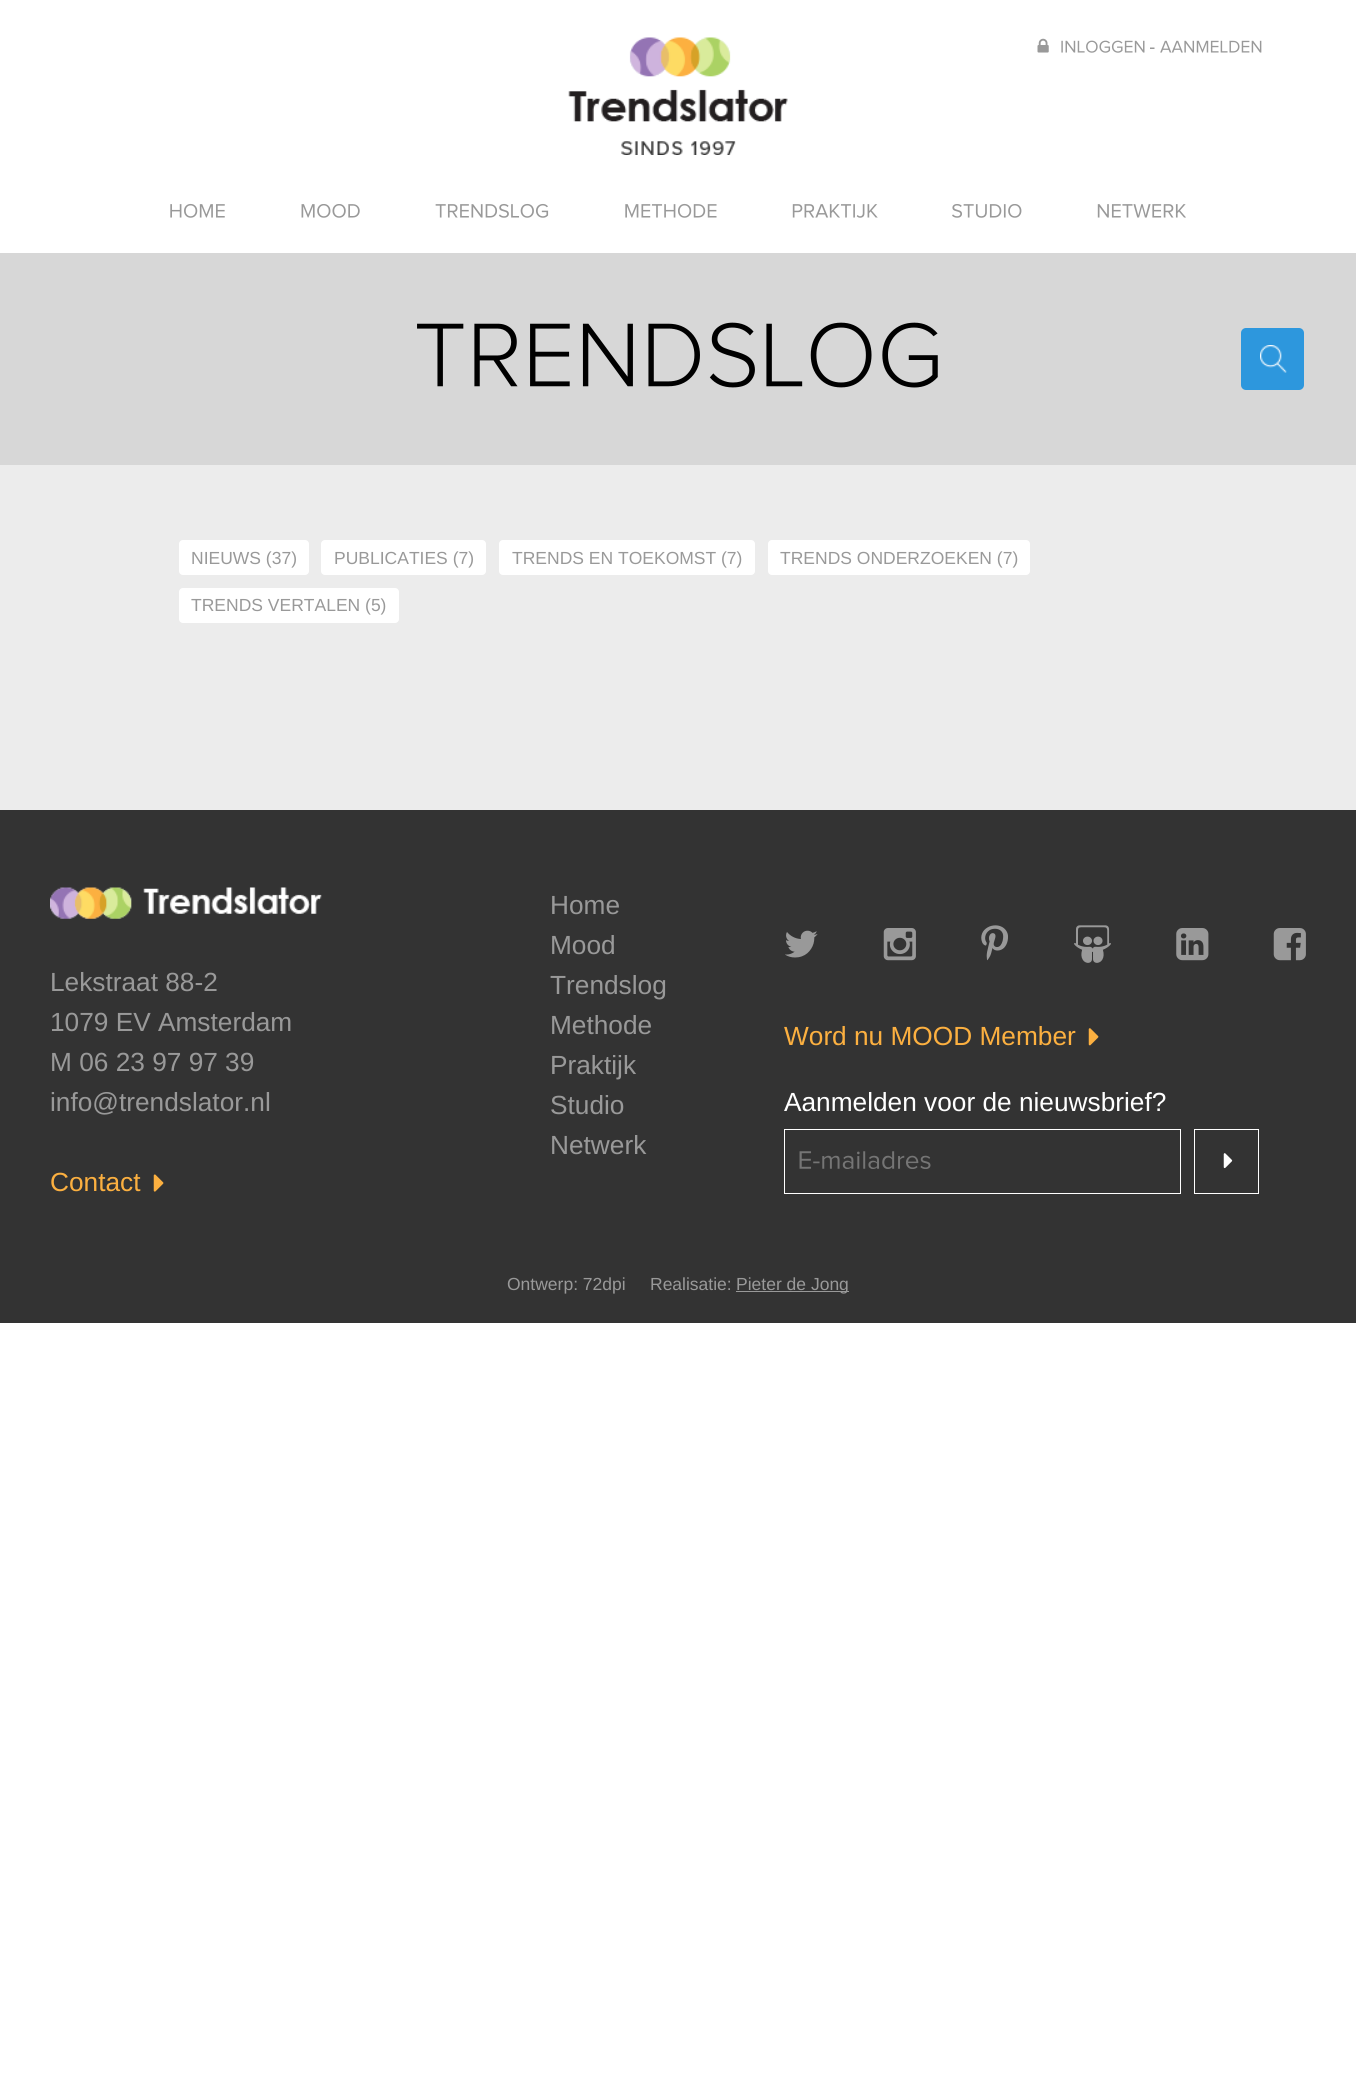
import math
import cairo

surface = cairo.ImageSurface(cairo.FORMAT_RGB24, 1356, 2093)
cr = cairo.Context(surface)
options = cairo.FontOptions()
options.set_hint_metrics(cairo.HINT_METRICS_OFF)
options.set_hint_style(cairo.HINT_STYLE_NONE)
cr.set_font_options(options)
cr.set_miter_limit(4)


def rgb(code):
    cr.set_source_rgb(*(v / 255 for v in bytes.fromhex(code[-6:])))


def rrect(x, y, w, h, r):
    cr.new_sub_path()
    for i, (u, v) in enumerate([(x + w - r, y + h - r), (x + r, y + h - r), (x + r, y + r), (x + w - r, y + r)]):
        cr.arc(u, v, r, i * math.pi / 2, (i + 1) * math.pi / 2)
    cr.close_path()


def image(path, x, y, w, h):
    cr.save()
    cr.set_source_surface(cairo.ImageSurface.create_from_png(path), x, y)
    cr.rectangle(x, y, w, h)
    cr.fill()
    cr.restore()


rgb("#ffffff")
cr.paint()
image("img/1.png", 568, 37, 220, 118)
image("img/2.png", 1037, 38, 12, 15)
image("img/3.png", 1061, 40, 84, 13)
rgb("#999999")
cr.new_path()
cr.move_to(1154.5, 49)
cr.line_to(1150, 49)
cr.line_to(1150, 47.5)
cr.line_to(1154.5, 47.5)
cr.close_path()
cr.fill()
image("img/4.png", 1160, 40, 102, 13)
image("img/5.png", 170, 203, 55, 15)
image("img/6.png", 301, 204, 59, 14)
image("img/7.png", 435, 203, 114, 15)
image("img/8.png", 625, 203, 92, 15)
image("img/9.png", 792, 204, 86, 14)
image("img/10.png", 952, 204, 70, 14)
image("img/11.png", 1097, 204, 89, 14)
rgb("#d7d7d7")
cr.rectangle(0, 253, 1356, 212)
cr.fill()
image("img/12.png", 417, 322, 521, 66)
rgb("#2d97dd")
rrect(1241, 328, 63, 62, 5)
cr.fill()
image("img/13.png", 1260, 345, 27, 28)
rgb("#ececec")
cr.rectangle(0, 465, 1356, 345)
cr.fill()
rgb("#ffffff")
rrect(179, 540, 130, 35, 4)
cr.fill()
rrect(321, 540, 165, 35, 4)
cr.fill()
rrect(499, 540, 256, 35, 4)
cr.fill()
rrect(768, 540, 262, 35, 4)
cr.fill()
rrect(179, 588, 220, 35, 4)
cr.fill()
rgb("#333333")
cr.rectangle(0, 810, 1356, 513)
cr.fill()
image("img/14.png", 50, 887, 272, 32)
image("img/15.png", 153, 1174, 11, 18)
image("img/16.png", 785, 930, 33, 28)
image("img/17.png", 883, 928, 33, 33)
image("img/18.png", 981, 925, 27, 36)
image("img/19.png", 1074, 925, 37, 38)
image("img/20.png", 1176, 928, 33, 33)
image("img/21.png", 1273, 928, 33, 33)
image("img/22.png", 1088, 1028, 11, 18)
cr.rectangle(784.5, 1129.5, 396, 64)
rgb("#ffffff")
cr.set_line_width(1)
cr.stroke()
image("img/23.png", 799, 1151, 132, 18)
cr.rectangle(1194.5, 1129.5, 64, 64)
cr.stroke()
image("img/24.png", 1223, 1153, 10, 16)
rgb("#999999")
cr.rectangle(736, 1291, 113, 1)
cr.fill()
cr.select_font_face("Liberation Sans")
cr.set_font_size(17.5)
for x, y, s in [
    (191, 564, "NIEUWS (37)"),
    (334, 564, "PUBLICATIES (7)"),
    (512, 564, "TRENDS EN TOEKOMST (7)"),
    (780, 564, "TRENDS ONDERZOEKEN (7)"),
    (191, 611, "TRENDS VERTALEN (5)"),
]:
    cr.move_to(x, y)
    cr.show_text(s)
cr.set_font_size(26.25)
for x, y, s in [
    (50, 991, "Lekstraat 88-2"),
    (50, 1031, "1079 EV Amsterdam"),
    (50, 1071, "M 06 23 97 97 39"),
    (50, 1111, "info@trendslator.nl"),
]:
    cr.move_to(x, y)
    cr.show_text(s)
rgb("#fcb040")
cr.move_to(50, 1191)
cr.show_text("Contact")
rgb("#999999")
for x, y, s in [
    (550, 914, "Home"),
    (550, 954, "Mood"),
    (550, 994, "Trendslog"),
    (550, 1034, "Methode"),
    (550, 1074, "Praktijk"),
    (550, 1114, "Studio"),
    (550, 1154, "Netwerk"),
]:
    cr.move_to(x, y)
    cr.show_text(s)
rgb("#fcb040")
cr.move_to(784, 1045)
cr.show_text("Word nu MOOD Member")
rgb("#ffffff")
cr.move_to(784, 1111)
cr.show_text("Aanmelden voor de nieuwsbrief?")
cr.set_font_size(17.5)
rgb("#999999")
cr.move_to(507, 1290)
cr.show_text("Ontwerp: 72dpi     Realisatie:")
cr.move_to(736, 1290)
cr.show_text("Pieter de Jong")
surface.write_to_png("page.png")
